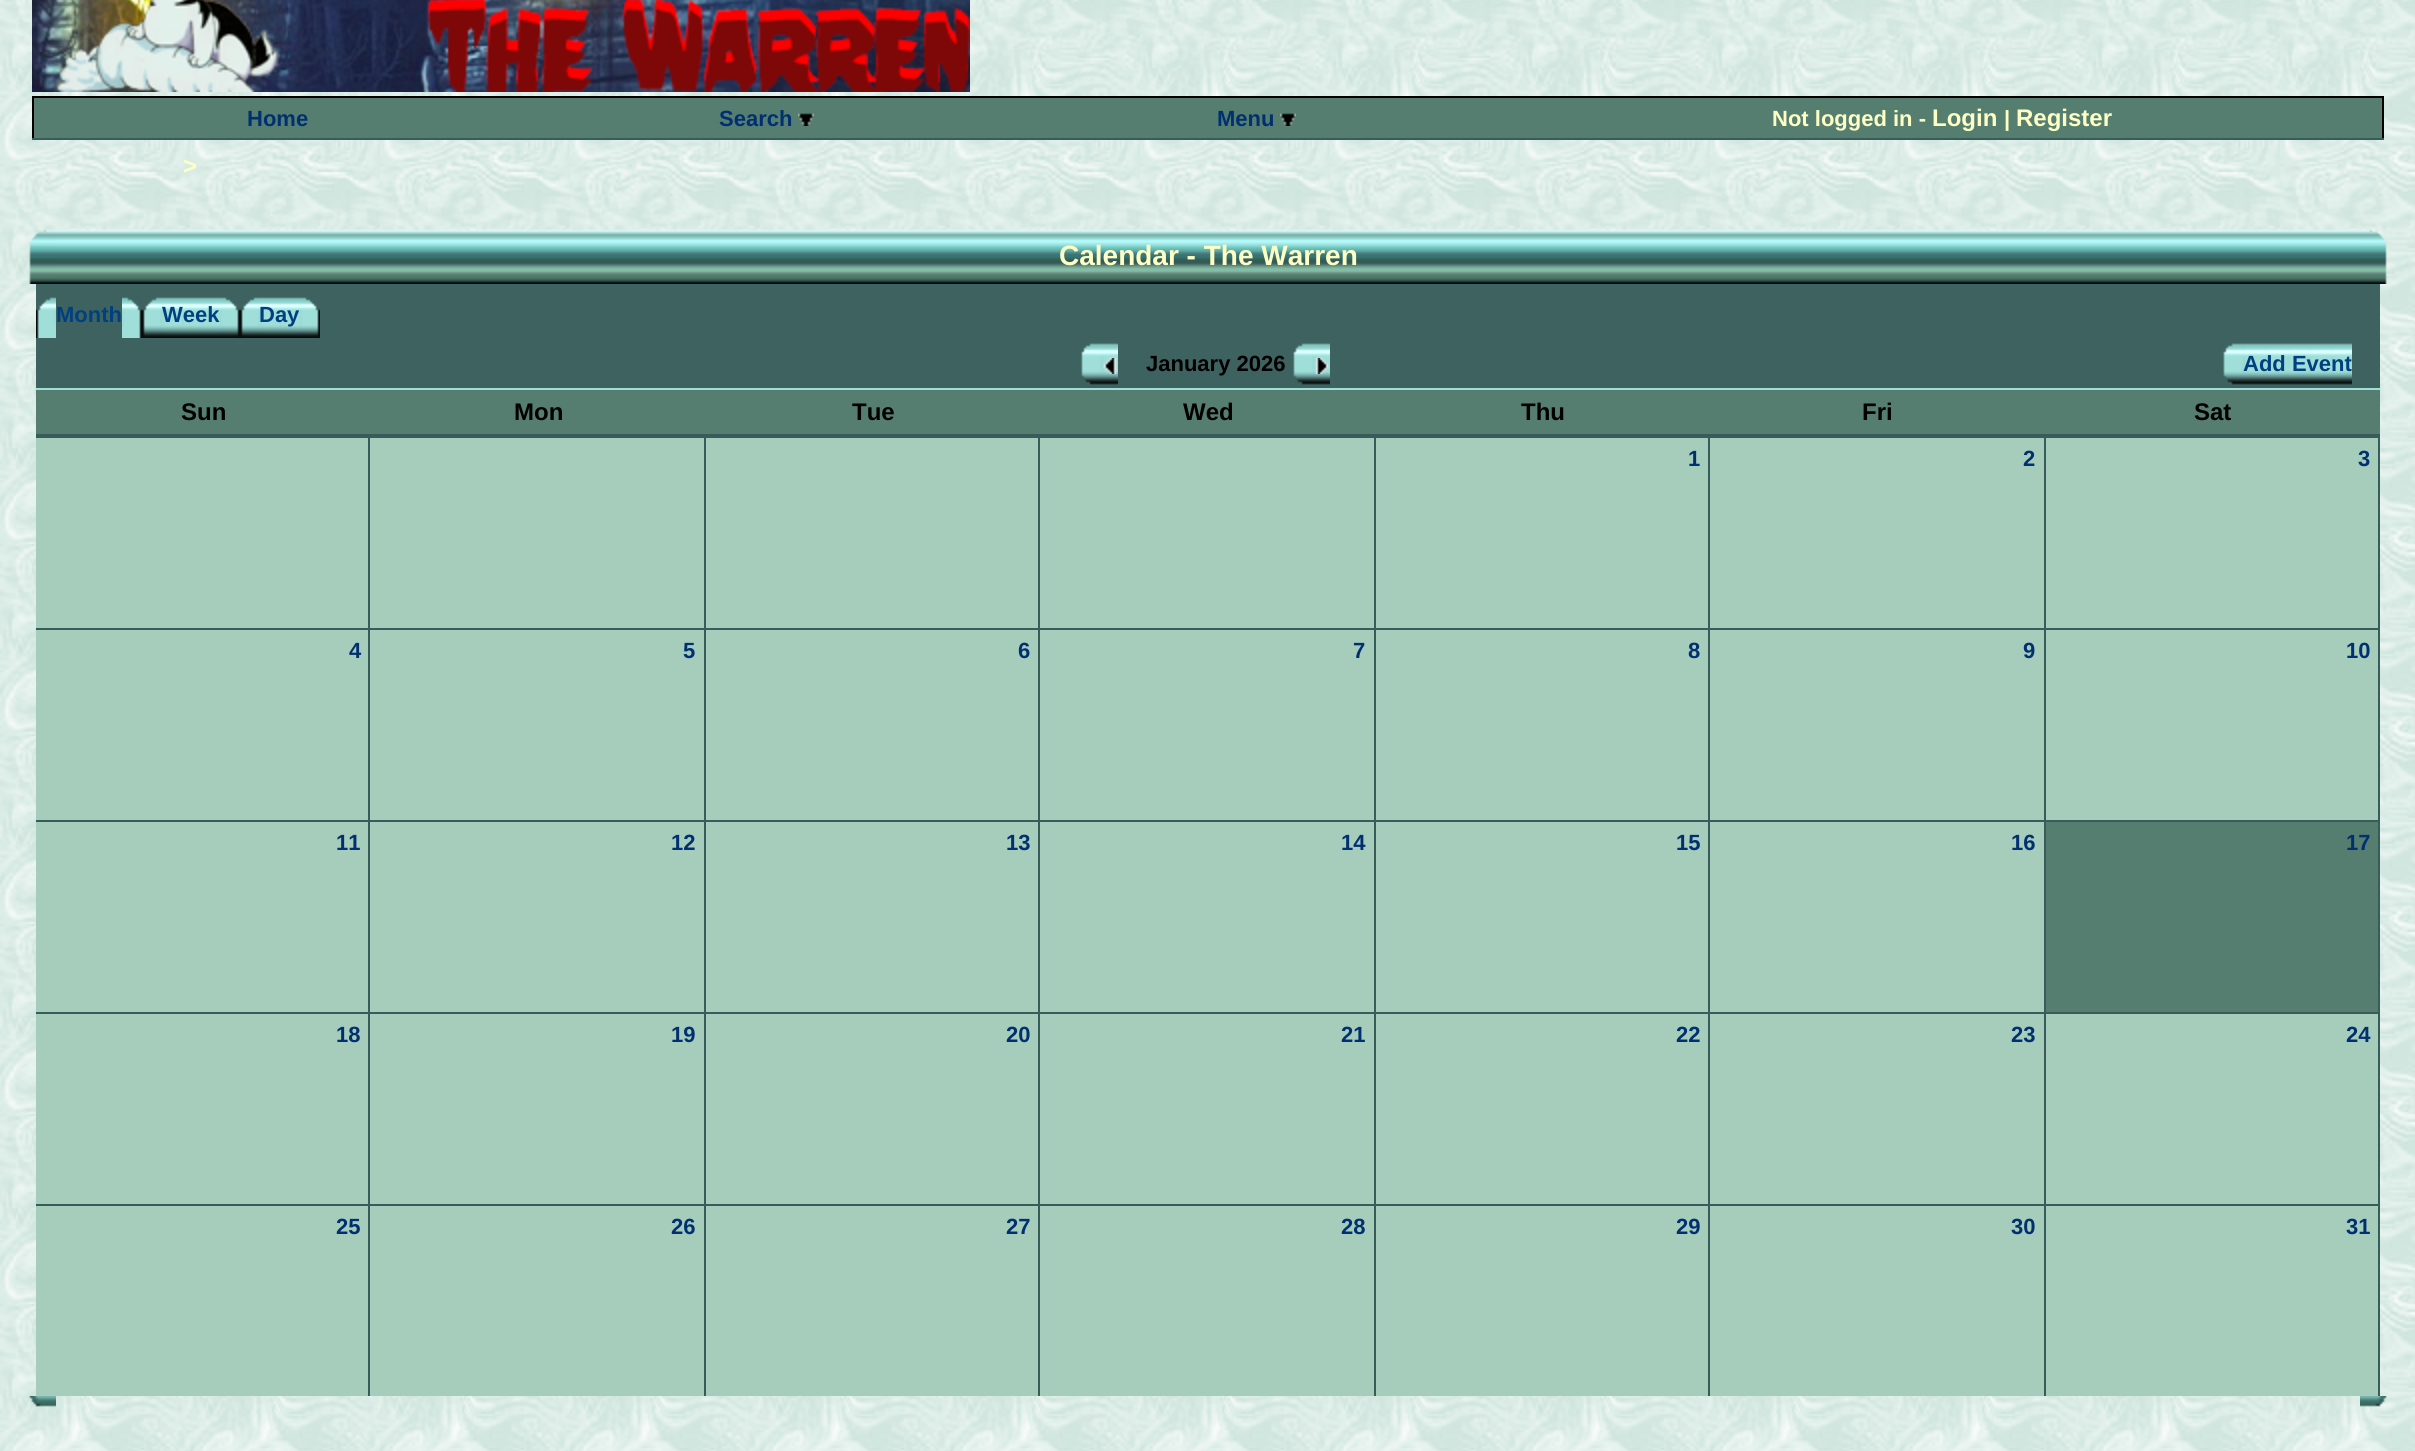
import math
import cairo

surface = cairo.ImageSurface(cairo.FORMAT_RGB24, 2415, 1451)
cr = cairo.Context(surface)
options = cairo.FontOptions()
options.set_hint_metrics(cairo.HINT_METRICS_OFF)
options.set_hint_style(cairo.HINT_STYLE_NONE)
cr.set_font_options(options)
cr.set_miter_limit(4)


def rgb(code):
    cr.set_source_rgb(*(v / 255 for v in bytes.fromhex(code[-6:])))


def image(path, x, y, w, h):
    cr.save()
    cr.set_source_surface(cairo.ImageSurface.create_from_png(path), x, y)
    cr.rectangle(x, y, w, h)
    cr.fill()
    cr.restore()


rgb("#ffffff")
cr.paint()
image("img/1.png", 0, 0, 2415, 1451)
image("img/2.png", 32, 0, 938, 92)
for x, y, w, h, color in [
    (34, 98, 2348, 40, "#557e70"),
    (32, 96, 2352, 2, "#000000"),
    (32, 96, 2, 42, "#000000"),
]:
    rgb(color)
    cr.rectangle(x, y, w, h)
    cr.fill()
image("img/3.png", 798, 113, 16, 13)
image("img/3.png", 1280, 113, 16, 13)
cr.rectangle(2382, 96, 2, 42)
cr.fill()
rgb("#375c5a")
cr.rectangle(32, 138, 2352, 2)
cr.fill()
image("img/4.png", 29, 229, 27, 55)
image("img/5.png", 56, 229, 2304, 55)
image("img/6.png", 2360, 229, 27, 55)
rgb("#a6ccbb")
cr.rectangle(36, 438, 2342, 958)
cr.fill()
rgb("#3e6260")
cr.rectangle(36, 284, 2344, 104)
cr.fill()
image("img/7.png", 36, 297, 20, 41)
image("img/8.png", 122, 297, 20, 41)
image("img/9.png", 142, 297, 20, 41)
image("img/10.png", 162, 297, 58, 41)
image("img/11.png", 220, 297, 20, 41)
image("img/9.png", 240, 297, 20, 41)
image("img/12.png", 260, 297, 40, 41)
image("img/11.png", 300, 297, 20, 41)
image("img/13.png", 1081, 343, 21, 42)
image("img/14.png", 1102, 343, 16, 42)
image("img/15.png", 1103, 358, 14, 16)
image("img/13.png", 1293, 343, 21, 42)
image("img/14.png", 1314, 343, 16, 42)
image("img/16.png", 1315, 358, 14, 16)
image("img/13.png", 2223, 343, 21, 42)
image("img/17.png", 2244, 343, 108, 42)
for x, y, w, h, color in [
    (36, 390, 2344, 44, "#557e70"),
    (36, 388, 2344, 2, "#a0dfd9"),
    (36, 434, 2344, 2, "#375c5a"),
    (36, 436, 2344, 2, "#375c5a"),
    (368, 436, 2, 192, "#375c5a"),
    (704, 436, 2, 192, "#375c5a"),
    (1038, 436, 2, 192, "#375c5a"),
    (1374, 436, 2, 192, "#375c5a"),
    (1708, 436, 2, 192, "#375c5a"),
    (2044, 436, 2, 192, "#375c5a"),
    (2378, 436, 2, 192, "#375c5a"),
    (36, 628, 2344, 2, "#375c5a"),
    (368, 628, 2, 192, "#375c5a"),
    (704, 628, 2, 192, "#375c5a"),
    (1038, 628, 2, 192, "#375c5a"),
    (1374, 628, 2, 192, "#375c5a"),
    (1708, 628, 2, 192, "#375c5a"),
    (2044, 628, 2, 192, "#375c5a"),
    (2378, 628, 2, 192, "#375c5a"),
    (36, 820, 2344, 2, "#375c5a"),
    (368, 820, 2, 192, "#375c5a"),
    (704, 820, 2, 192, "#375c5a"),
    (1038, 820, 2, 192, "#375c5a"),
    (1374, 820, 2, 192, "#375c5a"),
    (1708, 820, 2, 192, "#375c5a"),
    (2044, 820, 2, 192, "#375c5a"),
    (2046, 822, 332, 190, "#557e70"),
    (2378, 820, 2, 192, "#375c5a"),
    (36, 1012, 2344, 2, "#375c5a"),
    (368, 1012, 2, 192, "#375c5a"),
    (704, 1012, 2, 192, "#375c5a"),
    (1038, 1012, 2, 192, "#375c5a"),
    (1374, 1012, 2, 192, "#375c5a"),
    (1708, 1012, 2, 192, "#375c5a"),
    (2044, 1012, 2, 192, "#375c5a"),
    (2378, 1012, 2, 192, "#375c5a"),
    (36, 1204, 2344, 2, "#375c5a"),
    (368, 1204, 2, 192, "#375c5a"),
    (704, 1204, 2, 192, "#375c5a"),
    (1038, 1204, 2, 192, "#375c5a"),
    (1374, 1204, 2, 192, "#375c5a"),
    (1708, 1204, 2, 192, "#375c5a"),
    (2044, 1204, 2, 192, "#375c5a"),
    (2378, 1204, 2, 192, "#375c5a"),
]:
    rgb(color)
    cr.rectangle(x, y, w, h)
    cr.fill()
image("img/18.png", 29, 1396, 27, 11)
image("img/19.png", 2360, 1396, 27, 11)
cr.select_font_face("Liberation Sans", cairo.FONT_SLANT_NORMAL, cairo.FONT_WEIGHT_BOLD)
cr.set_font_size(22)
rgb("#003070")
for x, y, s in [
    (247, 126, "Home"),
    (719, 126, "Search"),
    (1217, 126, "Menu"),
]:
    cr.move_to(x, y)
    cr.show_text(s)
rgb("#feffc5")
cr.move_to(1772, 126)
cr.show_text("Not logged in -")
cr.set_font_size(24)
cr.move_to(1932, 126)
cr.show_text("Login")
cr.set_font_size(22)
cr.move_to(2004, 126)
cr.show_text("|")
cr.set_font_size(24)
cr.move_to(2016, 126)
cr.show_text("Register")
cr.move_to(183, 174)
cr.show_text(">")
cr.set_font_size(28)
cr.move_to(1059, 265)
cr.show_text("Calendar - The Warren")
cr.set_font_size(22)
rgb("#004080")
for x, y, s in [
    (56, 322, "Month"),
    (162, 322, "Week"),
    (259, 322, "Day"),
]:
    cr.move_to(x, y)
    cr.show_text(s)
rgb("#000000")
cr.move_to(1146, 371)
cr.show_text("January 2026")
rgb("#004080")
cr.move_to(2243, 371)
cr.show_text("Add Event")
cr.set_font_size(24)
rgb("#000000")
for x, y, s in [
    (181, 420, "Sun"),
    (514, 420, "Mon"),
    (852, 420, "Tue"),
    (1183, 420, "Wed"),
    (1521, 420, "Thu"),
    (1862, 420, "Fri"),
    (2194, 420, "Sat"),
]:
    cr.move_to(x, y)
    cr.show_text(s)
cr.set_font_size(22)
rgb("#003070")
for x, y, s in [
    (1688, 466, "1"),
    (2023, 466, "2"),
    (2358, 466, "3"),
    (349, 658, "4"),
    (683, 658, "5"),
    (1018, 658, "6"),
    (1353, 658, "7"),
    (1688, 658, "8"),
    (2023, 658, "9"),
    (2346, 658, "10"),
    (336, 850, "11"),
    (671, 850, "12"),
    (1006, 850, "13"),
    (1341, 850, "14"),
    (1676, 850, "15"),
    (2011, 850, "16"),
    (2346, 850, "17"),
    (336, 1042, "18"),
    (671, 1042, "19"),
    (1006, 1042, "20"),
    (1341, 1042, "21"),
    (1676, 1042, "22"),
    (2011, 1042, "23"),
    (2346, 1042, "24"),
    (336, 1234, "25"),
    (671, 1234, "26"),
    (1006, 1234, "27"),
    (1341, 1234, "28"),
    (1676, 1234, "29"),
    (2011, 1234, "30"),
    (2346, 1234, "31"),
]:
    cr.move_to(x, y)
    cr.show_text(s)
surface.write_to_png("page.png")
